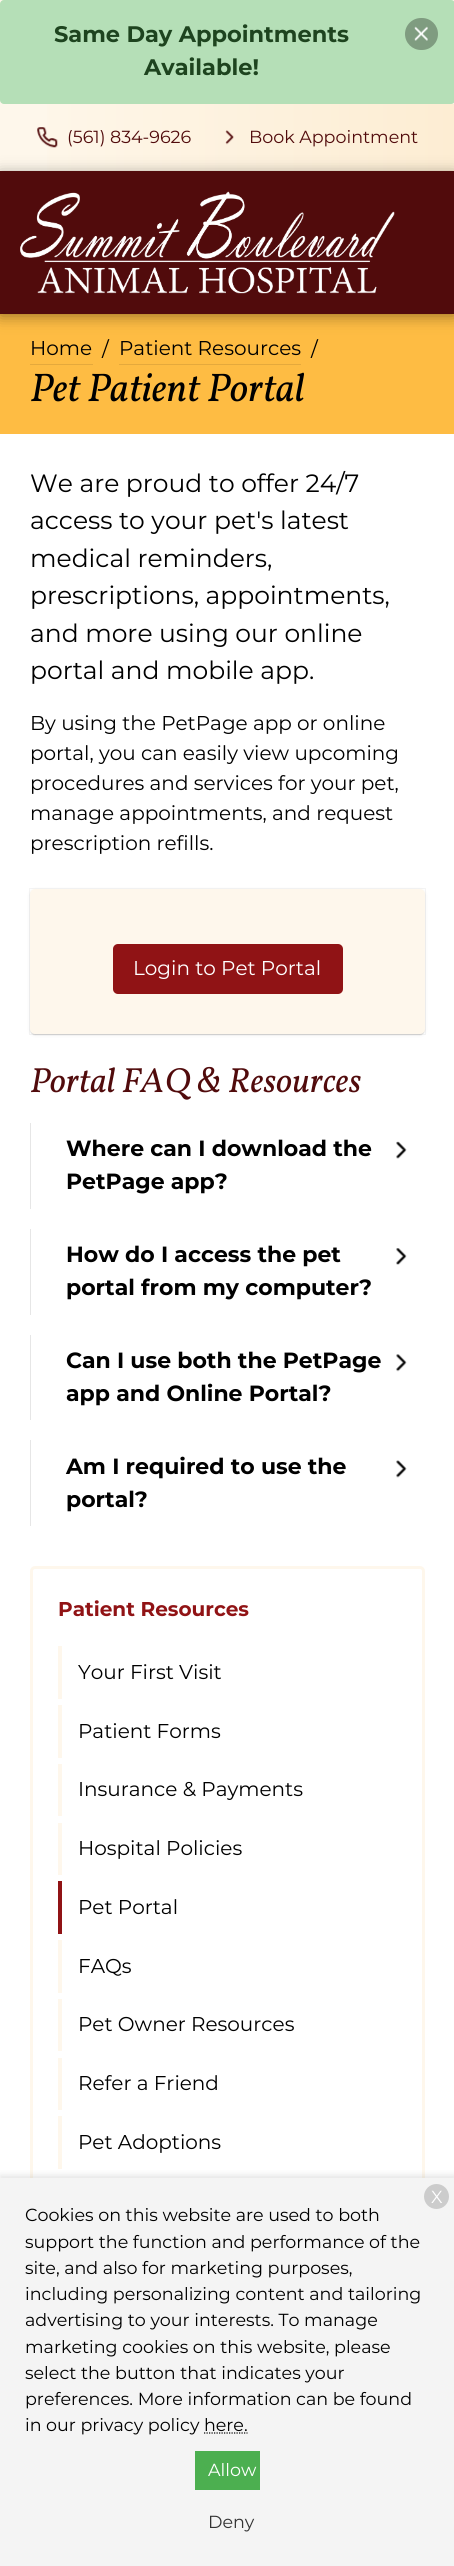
import math
import cairo

surface = cairo.ImageSurface(cairo.FORMAT_RGB24, 454, 2566)
cr = cairo.Context(surface)
options = cairo.FontOptions()
options.set_hint_metrics(cairo.HINT_METRICS_OFF)
options.set_hint_style(cairo.HINT_STYLE_NONE)
cr.set_font_options(options)
cr.set_miter_limit(4)


def rgb(code):
    cr.set_source_rgb(*(v / 255 for v in bytes.fromhex(code[-6:])))


def rrect(x, y, w, h, r):
    cr.new_sub_path()
    for i, (u, v) in enumerate([(x + w - r, y + h - r), (x + r, y + h - r), (x + r, y + r), (x + w - r, y + r)]):
        cr.arc(u, v, r, i * math.pi / 2, (i + 1) * math.pi / 2)
    cr.close_path()


def soft_shadow(x, y, w, h, r, blur, alpha):
    cr.push_group_with_content(cairo.CONTENT_ALPHA)
    cr.set_operator(cairo.OPERATOR_SOURCE)
    for i in range(15, -16, -2):
        e = blur * i / 6
        if min(w, h) + 2 * e > 0:
            cr.set_source_rgba(0, 0, 0, alpha * math.erfc((i - 1) / 8.5) / 2)
            rrect(x - e, y - e, w + 2 * e, h + 2 * e, max(0, min(r + e + blur * .6, min(w, h) / 2 + e)))
            cr.fill()
    cr.mask(cr.pop_group())


def image(path, x, y, w, h):
    cr.save()
    cr.set_source_surface(cairo.ImageSurface.create_from_png(path), x, y)
    cr.rectangle(x, y, w, h)
    cr.fill()
    cr.restore()


rgb("#fef7eb")
cr.paint()
rgb("#b5dfb7")
rrect(0, 0, 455, 104, 4)
cr.fill()
rgb("#7f9c80")
rrect(405, 18, 33, 32, 16)
cr.fill()
image("img/1.png", 414, 26, 14, 15)
gradient = cairo.LinearGradient(0, 138, 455, 137)
gradient.add_color_stop_rgba(0, 0.996, 0.969, 0.922, 1)
gradient.add_color_stop_rgba(1, 0.992, 0.929, 0.827, 1)
cr.set_source(gradient)
cr.rectangle(47, 104, 407, 67)
cr.fill()
image("img/2.png", 37, 127, 21, 21)
image("img/3.png", 225, 130, 9, 15)
rgb("#febc43")
cr.rectangle(0, 314, 454, 120)
cr.fill()
rgb("#000000")
soft_shadow(0, 174, 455, 142, 0, 7.5, 0.4)
rgb("#510b0c")
cr.rectangle(0, 171, 454, 143)
cr.fill()
image("img/4.png", 20, 191, 375, 103)
for x, y, w, h, color in [
    (30, 364, 63, 1, "#e5a93c"),
    (119, 364, 182, 1, "#e5a93c"),
    (0, 434, 454, 1744, "#ffffff"),
]:
    rgb(color)
    cr.rectangle(x, y, w, h)
    cr.fill()
rgb("#212121")
soft_shadow(30, 890, 395, 145, 5, 2, 0.06)
soft_shadow(30, 890, 395, 145, 5, 0.5, 0.08)
soft_shadow(31, 893, 393, 142, 4, 0.5, 0.1)
cr.rectangle(29.5, 888.5, 396, 146)
cr.set_source_rgba(0.129, 0.129, 0.129, 0.05)
cr.set_line_width(1)
cr.stroke()
rgb("#fef7ec")
rrect(30, 889, 395, 145, 5)
cr.fill()
rgb("#901315")
rrect(113, 944, 230, 50, 5)
cr.fill()
rgb("#e6e6e6")
cr.rectangle(30, 1123, 1, 86)
cr.fill()
image("img/5.png", 396, 1141, 11, 18)
cr.rectangle(30, 1229, 1, 86)
cr.fill()
image("img/6.png", 396, 1248, 11, 17)
cr.rectangle(30, 1335, 1, 85)
cr.fill()
image("img/7.png", 396, 1354, 11, 18)
cr.rectangle(30, 1440, 1, 86)
cr.fill()
image("img/8.png", 396, 1460, 11, 18)
rrect(31.5, 1567.5, 392, 627, 3.5)
rgb("#fef7ec")
cr.set_line_width(3)
cr.stroke()
for x, y, w, h, color in [
    (58, 1646, 4, 53, "#fef7ec"),
    (58, 1705, 4, 53, "#fef7ec"),
    (58, 1764, 4, 52, "#fef7ec"),
    (58, 1823, 4, 52, "#fef7ec"),
    (58, 1881, 4, 53, "#901315"),
    (58, 1940, 4, 53, "#fef7ec"),
    (58, 1999, 4, 52, "#fef7ec"),
    (58, 2058, 4, 52, "#fef7ec"),
    (58, 2116, 4, 53, "#fef7ec"),
]:
    rgb(color)
    cr.rectangle(x, y, w, h)
    cr.fill()
rgb("#000000")
soft_shadow(0, 2175, 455, 389, 0, 3, 0.1)
rgb("#f4f4f4")
cr.rectangle(0, 2178, 454, 388)
cr.fill()
rgb("#cccccc")
cr.arc(436.5, 2196.5, 12.5, 0, 2 * math.pi)
cr.fill()
cr.new_path()
cr.move_to(204, 2433)
cr.line_to(247.5, 2433)
rgb("#000000")
cr.set_line_width(1.2)
cr.set_dash([1.25, 1.25])
cr.stroke()
rgb("#4caf50")
cr.rectangle(195, 2451, 65, 39)
cr.fill()
cr.select_font_face("Montserrat", cairo.FONT_SLANT_NORMAL, cairo.FONT_WEIGHT_BOLD)
cr.set_font_size(22.5)
rgb("#1e441f")
cr.move_to(54, 42)
cr.show_text("Same Day Appointments")
cr.move_to(144, 75)
cr.show_text("Available!")
cr.select_font_face("Montserrat")
cr.set_font_size(17.5)
rgb("#510b0c")
cr.move_to(67, 143)
cr.show_text("(561) 834-9626")
cr.move_to(249, 143)
cr.show_text("Book Appointment")
cr.set_font_size(20)
rgb("#000000")
for x, y, s in [
    (30, 355, "Home"),
    (102, 356, "/"),
    (119, 355, "Patient Resources"),
    (311, 356, "/"),
]:
    cr.move_to(x, y)
    cr.show_text(s)
cr.select_font_face("Vollkorn", cairo.FONT_SLANT_ITALIC)
cr.set_font_size(40)
cr.move_to(30, 401)
cr.show_text("Pet Patient Portal")
cr.select_font_face("Montserrat")
cr.set_font_size(25)
for x, y, s in [
    (30, 492, "We are proud to offer 24/7"),
    (30, 529, "access to your pet's latest"),
    (30, 567, "medical reminders,"),
    (30, 604, "prescriptions, appointments,"),
    (30, 642, "and more using our online"),
    (30, 679, "portal and mobile app."),
]:
    cr.move_to(x, y)
    cr.show_text(s)
cr.set_font_size(20)
for x, y, s in [
    (30, 730, "By using the PetPage app or online"),
    (30, 760, "portal, you can easily view upcoming"),
    (30, 790, "procedures and services for your pet,"),
    (30, 820, "manage appointments, and request"),
    (30, 850, "prescription refills."),
]:
    cr.move_to(x, y)
    cr.show_text(s)
rgb("#ffffff")
cr.move_to(133, 975)
cr.show_text("Login to Pet Portal")
cr.select_font_face("Vollkorn", cairo.FONT_SLANT_ITALIC)
cr.set_font_size(35)
rgb("#510b0c")
cr.move_to(30, 1092)
cr.show_text("Portal FAQ & Resources")
cr.select_font_face("Montserrat", cairo.FONT_SLANT_NORMAL, cairo.FONT_WEIGHT_BOLD)
cr.set_font_size(22)
rgb("#000000")
for x, y, s in [
    (66, 1156, "Where can I download the"),
    (66, 1189, "PetPage app?"),
    (66, 1262, "How do I access the pet"),
    (66, 1295, "portal from my computer?"),
    (66, 1368, "Can I use both the PetPage"),
    (66, 1401, "app and Online Portal?"),
    (66, 1474, "Am I required to use the"),
    (66, 1507, "portal?"),
]:
    cr.move_to(x, y)
    cr.show_text(s)
cr.set_font_size(20)
rgb("#901315")
cr.move_to(58, 1616)
cr.show_text("Patient Resources")
cr.select_font_face("Montserrat")
rgb("#000000")
for x, y, s in [
    (78, 1679, "Your First Visit"),
    (78, 1738, "Patient Forms"),
    (78, 1796, "Insurance & Payments"),
    (78, 1855, "Hospital Policies"),
    (78, 1914, "Pet Portal"),
    (78, 1973, "FAQs"),
    (78, 2031, "Pet Owner Resources"),
    (78, 2090, "Refer a Friend"),
    (78, 2149, "Pet Adoptions"),
]:
    cr.move_to(x, y)
    cr.show_text(s)
cr.set_font_size(17.5)
rgb("#ffffff")
cr.move_to(431, 2203)
cr.show_text("X")
rgb("#000000")
for x, y, s in [
    (25, 2221, "Cookies on this website are used to both"),
    (25, 2248, "support the function and performance of the"),
    (25, 2274, "site, and also for marketing purposes,"),
    (25, 2300, "including personalizing content and tailoring"),
    (25, 2326, "advertising to your interests. To manage"),
    (25, 2353, "marketing cookies on this website, please"),
    (25, 2379, "select the button that indicates your"),
    (25, 2405, "preferences. More information can be found"),
    (25, 2431, "in our privacy policy here."),
]:
    cr.move_to(x, y)
    cr.show_text(s)
rgb("#ffffff")
cr.move_to(208, 2476)
cr.show_text("Allow")
rgb("#333333")
cr.move_to(208, 2528)
cr.show_text("Deny")
surface.write_to_png("page.png")
